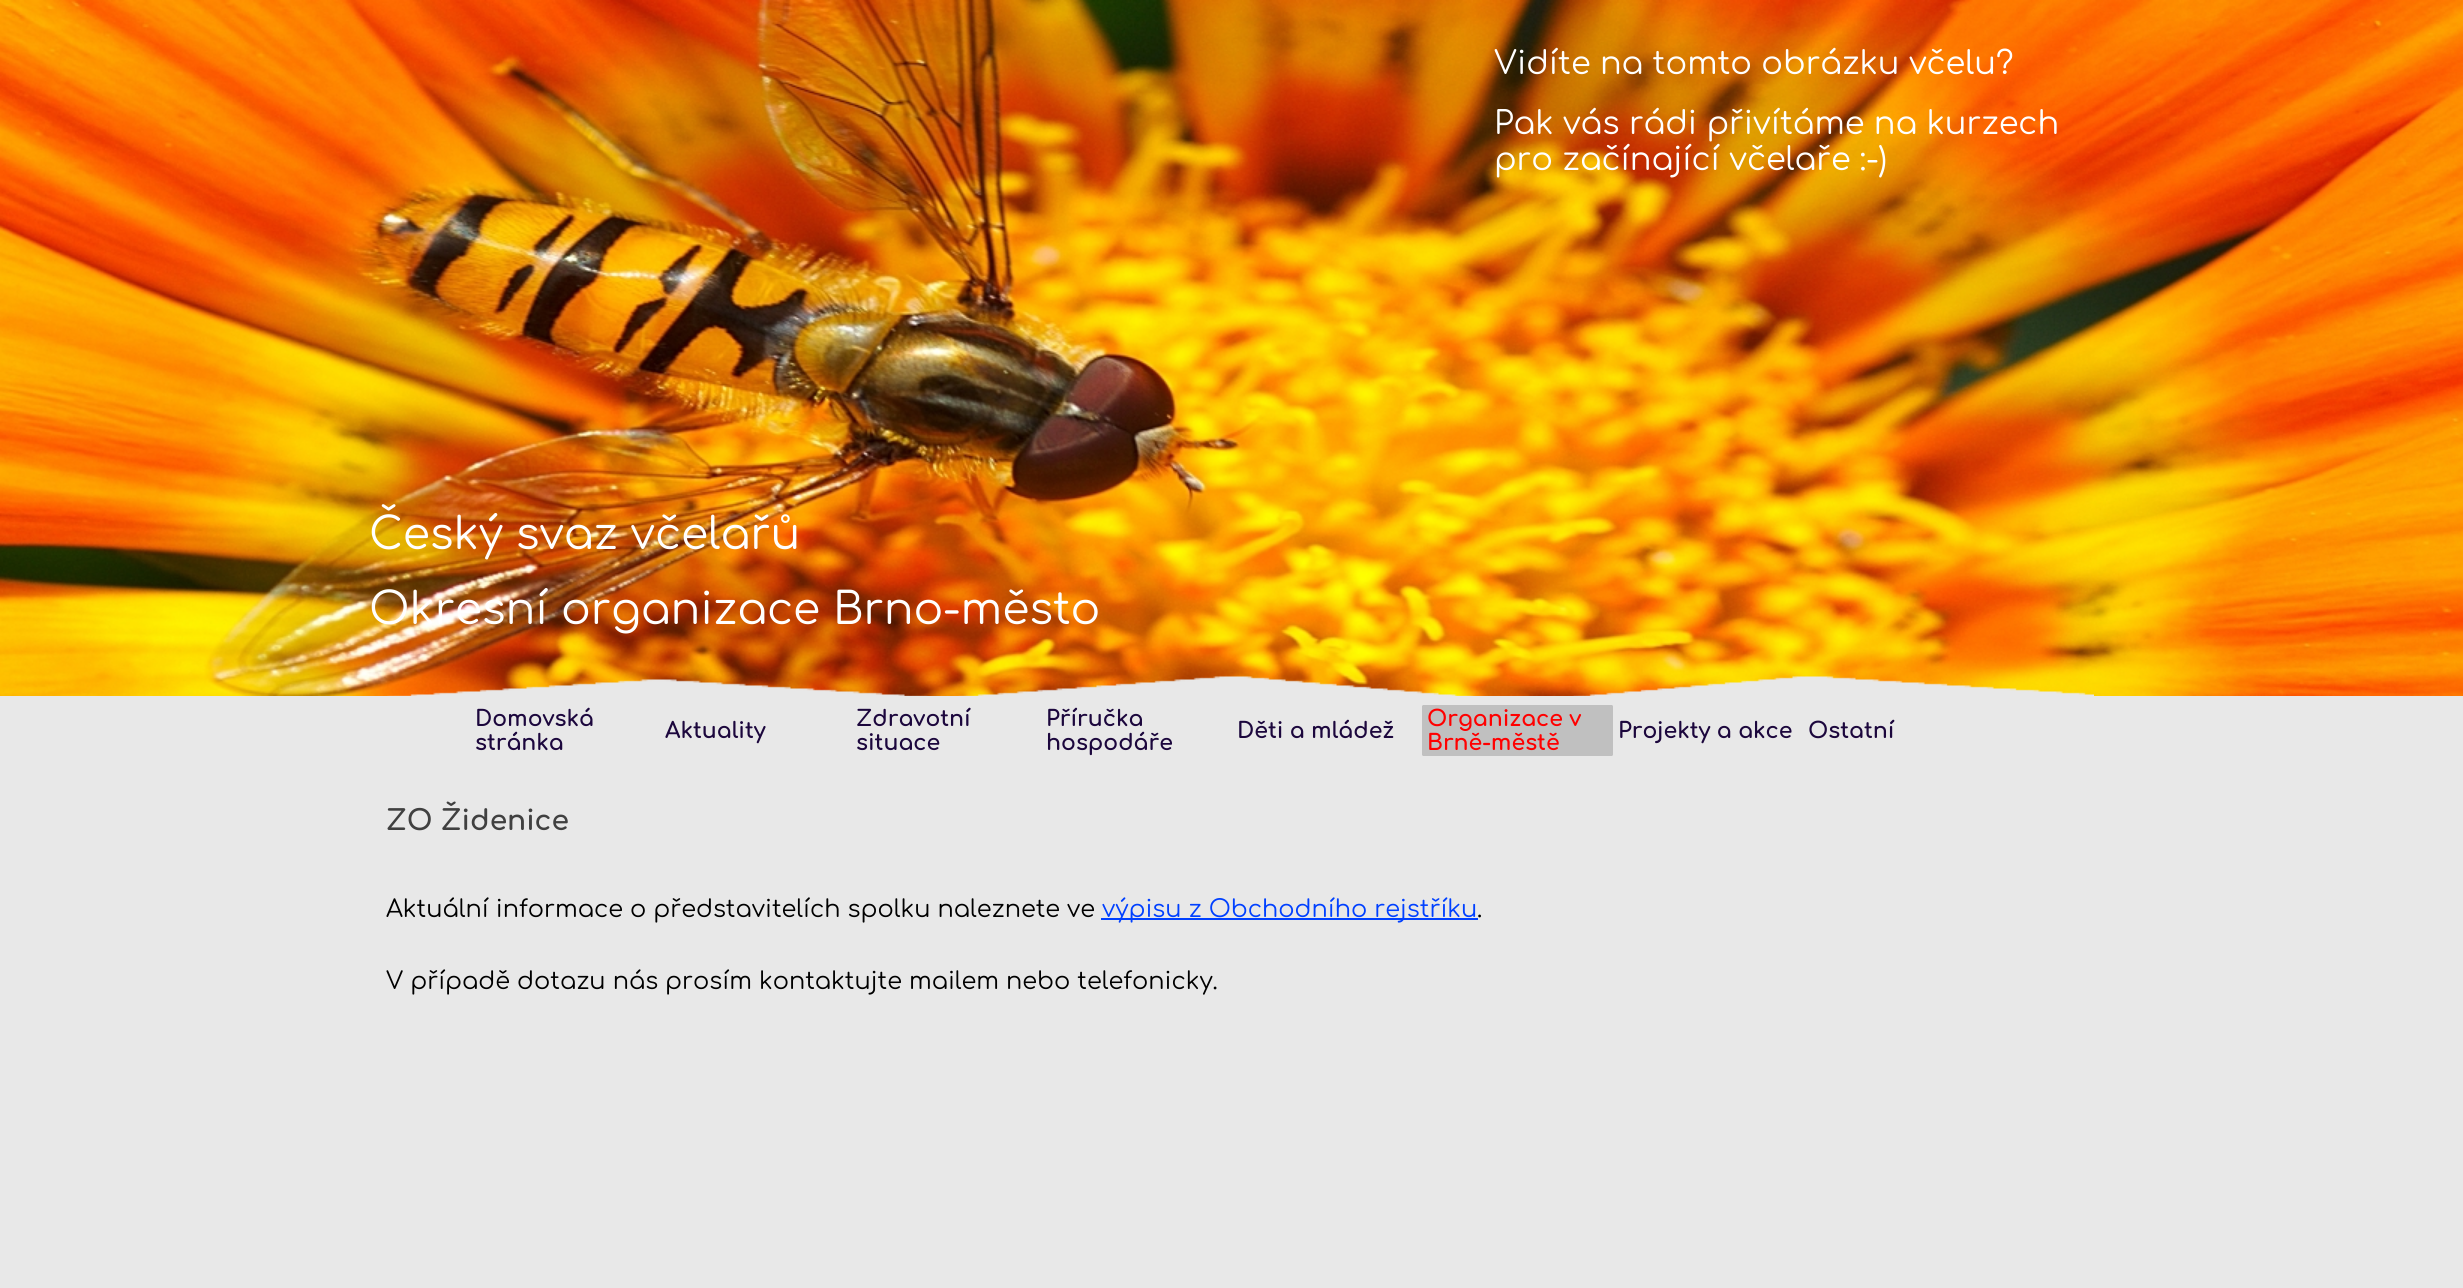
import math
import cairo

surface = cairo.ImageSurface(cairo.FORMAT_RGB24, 2463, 1288)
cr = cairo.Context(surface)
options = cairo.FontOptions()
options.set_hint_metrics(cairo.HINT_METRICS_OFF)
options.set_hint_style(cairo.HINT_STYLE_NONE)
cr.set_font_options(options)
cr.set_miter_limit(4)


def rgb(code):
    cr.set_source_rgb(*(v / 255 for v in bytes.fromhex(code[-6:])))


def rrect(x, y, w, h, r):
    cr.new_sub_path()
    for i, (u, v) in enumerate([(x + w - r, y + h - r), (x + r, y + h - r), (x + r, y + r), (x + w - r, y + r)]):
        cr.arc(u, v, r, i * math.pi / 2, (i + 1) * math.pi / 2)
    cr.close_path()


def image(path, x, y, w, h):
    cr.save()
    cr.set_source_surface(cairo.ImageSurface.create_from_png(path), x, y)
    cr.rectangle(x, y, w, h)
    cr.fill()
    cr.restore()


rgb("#e8e8e8")
cr.paint()
image("img/1.png", 0, 0, 2463, 696)
image("img/2.png", 387, 676, 1707, 20)
rgb("#c0c0c0")
rrect(1422, 705, 191, 51, 1.5)
cr.fill()
rgb("#0040ff")
cr.rectangle(1101, 918, 377, 2)
cr.fill()
cr.select_font_face("Comfortaa")
cr.set_font_size(32)
rgb("#ffffff")
for x, y, s in [
    (1494, 74, "Vidíte na tomto obrázku včelu?"),
    (1494, 134, "Pak vás rádi přivítáme na kurzech"),
    (1494, 170, "pro začínající včelaře :-)"),
]:
    cr.move_to(x, y)
    cr.show_text(s)
cr.set_font_size(44)
cr.move_to(369, 549)
cr.show_text("Český svaz včelařů")
cr.move_to(369, 624)
cr.show_text("Okresní organizace Brno-město")
cr.select_font_face("Comfortaa", cairo.FONT_SLANT_NORMAL, cairo.FONT_WEIGHT_BOLD)
cr.set_font_size(22)
rgb("#1c073d")
for x, y, s in [
    (475, 726, "Domovská"),
    (475, 750, "stránka"),
    (665, 738, "Aktuality"),
    (856, 726, "Zdravotní"),
    (856, 750, "situace"),
    (1046, 726, "Příručka"),
    (1046, 750, "hospodáře"),
    (1237, 738, "Děti a mládež"),
]:
    cr.move_to(x, y)
    cr.show_text(s)
rgb("#ff0000")
cr.move_to(1427, 726)
cr.show_text("Organizace v")
cr.move_to(1427, 750)
cr.show_text("Brně-městě")
rgb("#1c073d")
cr.move_to(1618, 738)
cr.show_text("Projekty a akce")
cr.move_to(1808, 738)
cr.show_text("Ostatní")
cr.set_font_size(28)
rgb("#404040")
cr.move_to(386, 830)
cr.show_text("ZO Židenice")
cr.select_font_face("Comfortaa")
cr.set_font_size(24)
rgb("#000000")
cr.move_to(386, 917)
cr.show_text("Aktuální informace o představitelích spolku naleznete ve")
rgb("#0040ff")
cr.move_to(1102, 917)
cr.show_text("výpisu z Obchodního rejstříku")
rgb("#000000")
cr.move_to(1477, 917)
cr.show_text(".")
cr.move_to(386, 989)
cr.show_text("V případě dotazu nás prosím kontaktujte mailem nebo telefonicky.")
surface.write_to_png("page.png")
